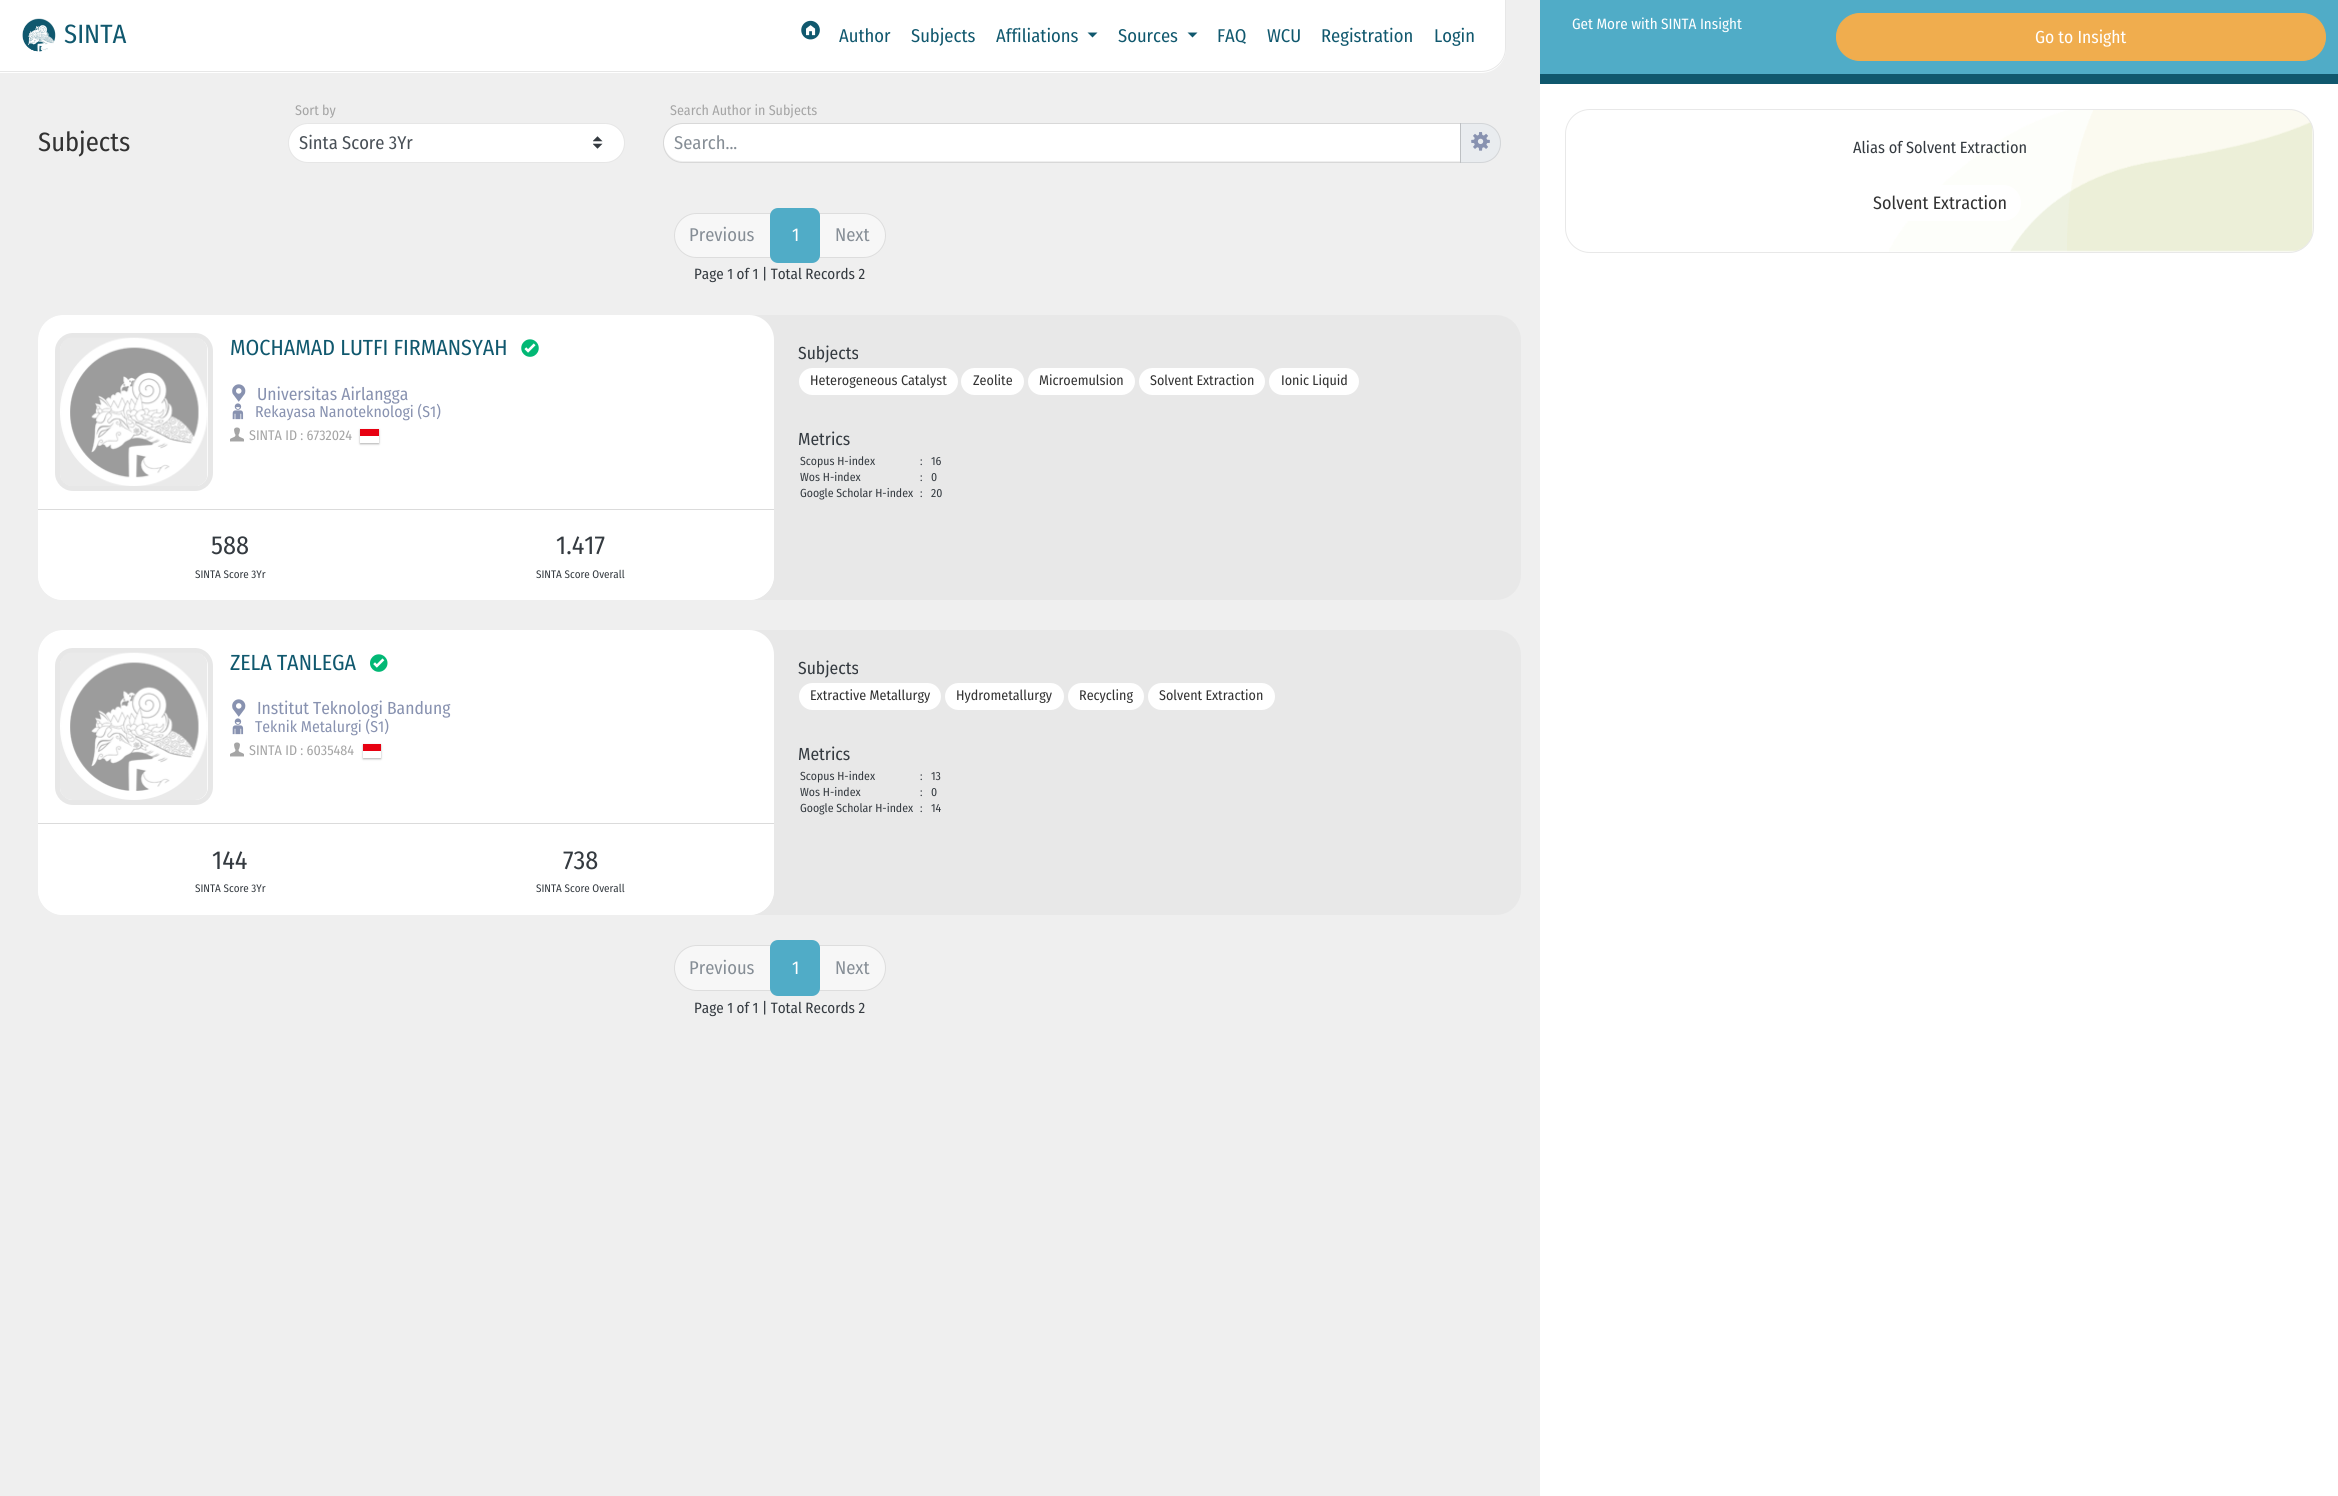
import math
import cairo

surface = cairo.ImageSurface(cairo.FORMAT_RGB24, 2338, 1496)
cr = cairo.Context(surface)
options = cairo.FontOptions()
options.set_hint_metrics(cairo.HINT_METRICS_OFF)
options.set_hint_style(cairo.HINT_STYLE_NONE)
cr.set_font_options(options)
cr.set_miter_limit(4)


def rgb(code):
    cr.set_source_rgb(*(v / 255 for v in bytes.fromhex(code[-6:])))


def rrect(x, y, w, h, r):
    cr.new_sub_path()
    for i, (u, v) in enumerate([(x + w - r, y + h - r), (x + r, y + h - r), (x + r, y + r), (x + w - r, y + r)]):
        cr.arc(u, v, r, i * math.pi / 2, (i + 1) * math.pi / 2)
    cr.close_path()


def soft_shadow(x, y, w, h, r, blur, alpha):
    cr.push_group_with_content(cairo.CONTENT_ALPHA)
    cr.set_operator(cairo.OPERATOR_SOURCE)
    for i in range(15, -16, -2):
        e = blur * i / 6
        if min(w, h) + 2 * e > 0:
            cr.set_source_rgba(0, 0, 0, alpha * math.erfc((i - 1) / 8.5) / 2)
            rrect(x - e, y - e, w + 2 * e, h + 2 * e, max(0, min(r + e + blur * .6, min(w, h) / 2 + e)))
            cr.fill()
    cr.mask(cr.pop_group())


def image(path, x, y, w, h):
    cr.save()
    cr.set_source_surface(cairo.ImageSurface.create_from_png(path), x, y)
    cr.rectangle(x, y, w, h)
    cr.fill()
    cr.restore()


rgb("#efefef")
cr.paint()
rgb("#ffffff")
cr.new_path()
cr.move_to(0, 0)
cr.line_to(1506, 0)
cr.line_to(1506, 48)
cr.curve_to(1506, 62, 1495, 73, 1481, 73)
cr.line_to(0, 73)
cr.close_path()
cr.fill()
rgb("#e7e7e7")
cr.set_fill_rule(cairo.FILL_RULE_EVEN_ODD)
cr.new_path()
cr.move_to(0, 0)
cr.line_to(1506, 0)
cr.line_to(1506, 48)
cr.curve_to(1506, 61, 1495, 72, 1481, 72)
cr.line_to(0, 72)
cr.close_path()
cr.move_to(0, 0)
cr.line_to(1505, 0)
cr.line_to(1505, 48)
cr.curve_to(1505, 61, 1494, 71, 1481, 71)
cr.line_to(0, 71)
cr.close_path()
cr.fill()
image("img/1.png", 22, 18, 34, 34)
image("img/2.png", 801, 20, 19, 20)
rgb("#10586e")
cr.set_fill_rule(cairo.FILL_RULE_WINDING)
cr.new_path()
cr.move_to(1087.5, 32.5)
cr.line_to(1097.5, 32.5)
cr.line_to(1092.5, 37.5)
cr.close_path()
cr.fill()
cr.new_path()
cr.move_to(1187.5, 32.5)
cr.line_to(1197.5, 32.5)
cr.line_to(1192.5, 37.5)
cr.close_path()
cr.fill()
rgb("#ffffff")
rrect(288, 123, 337, 40, 20)
cr.fill()
image("img/3.png", 593, 136, 10, 13)
rrect(288.5, 123.5, 336, 39, 19.5)
cr.set_source_rgba(0, 0, 0, 0.1)
cr.set_line_width(1)
cr.stroke()
rgb("#ffffff")
cr.new_path()
cr.move_to(682.5, 124)
cr.line_to(1460, 124)
cr.line_to(1460, 161)
cr.line_to(682.5, 161)
cr.curve_to(672.5, 161, 664, 152.5, 664, 142.5)
cr.curve_to(664, 132.5, 672.5, 124, 682.5, 124)
cr.close_path()
cr.fill()
rgb("#e9ecef")
cr.new_path()
cr.move_to(1460, 123)
cr.line_to(1481, 123)
cr.curve_to(1492, 123, 1501, 132, 1501, 143)
cr.curve_to(1501, 154, 1492, 163, 1481, 163)
cr.line_to(1460, 163)
cr.close_path()
cr.fill()
cr.new_path()
cr.move_to(1460.5, 123.5)
cr.line_to(1481, 123.5)
cr.curve_to(1492, 123.5, 1500.5, 132, 1500.5, 143)
cr.curve_to(1500.5, 154, 1492, 162.5, 1481, 162.5)
cr.line_to(1460.5, 162.5)
cr.close_path()
cr.set_source_rgba(0, 0, 0, 0.1)
cr.stroke()
cr.new_path()
cr.move_to(683, 123.5)
cr.line_to(1460.5, 123.5)
cr.line_to(1460.5, 162.5)
cr.line_to(683, 162.5)
cr.curve_to(672, 162.5, 663.5, 154, 663.5, 143)
cr.curve_to(663.5, 132, 672, 123.5, 683, 123.5)
cr.close_path()
cr.stroke()
image("img/4.png", 1471, 132, 19, 19)
rgb("#f7f7f7")
cr.new_path()
cr.move_to(696.5, 213.5)
cr.line_to(770.5, 213.5)
cr.line_to(770.5, 257.5)
cr.line_to(696.5, 257.5)
cr.curve_to(684.5, 257.5, 674.5, 247.5, 674.5, 235.5)
cr.curve_to(674.5, 223.5, 684.5, 213.5, 696.5, 213.5)
cr.close_path()
cr.fill_preserve()
rgb("#dddddd")
cr.stroke()
rgb("#f7f7f7")
cr.new_path()
cr.move_to(819.5, 213.5)
cr.line_to(863.5, 213.5)
cr.curve_to(875.5, 213.5, 885.5, 223.5, 885.5, 235.5)
cr.curve_to(885.5, 247.5, 875.5, 257.5, 863.5, 257.5)
cr.line_to(819.5, 257.5)
cr.close_path()
cr.fill_preserve()
rgb("#dddddd")
cr.stroke()
rgb("#50acc7")
rrect(773, 211, 44, 49, 5)
cr.fill_preserve()
cr.set_line_width(6)
cr.stroke()
rgb("#e8e8e8")
rrect(38, 315, 1483, 285, 25)
cr.fill()
rgb("#ffffff")
rrect(38, 315, 736, 285, 25)
cr.fill()
rrect(57.5, 335.5, 153, 153, 15.5)
rgb("#e7e7e7")
cr.set_line_width(5)
cr.stroke()
image("img/5.png", 60, 337, 148, 149)
image("img/6.png", 521, 339, 18, 18)
image("img/7.png", 232, 384, 14, 18)
image("img/8.png", 232, 403, 12, 17)
image("img/9.png", 230, 427, 14, 15)
rgb("#9e9e9e")
soft_shadow(360, 430, 19, 14, 0, 1, 0.8)
rgb("#e70011")
cr.rectangle(360, 429, 19, 7)
cr.fill()
rgb("#ffffff")
cr.rectangle(360, 436, 19, 7)
cr.fill()
cr.new_path()
cr.move_to(38, 509)
cr.line_to(774, 509)
cr.line_to(774, 575)
cr.curve_to(774, 589, 763, 600, 749, 600)
cr.line_to(63, 600)
cr.curve_to(49, 600, 38, 589, 38, 575)
cr.close_path()
cr.fill()
rgb("#dbdbdb")
cr.rectangle(38, 509, 736, 1)
cr.fill()
rgb("#ffffff")
rrect(799, 368, 159, 27, 13.5)
cr.fill()
rrect(961, 368, 63, 27, 13.5)
cr.fill()
rrect(1028, 368, 107, 27, 13.5)
cr.fill()
rrect(1139, 368, 126, 27, 13.5)
cr.fill()
rrect(1269, 368, 90, 27, 13.5)
cr.fill()
rgb("#e8e8e8")
rrect(38, 630, 1483, 285, 25)
cr.fill()
rgb("#ffffff")
rrect(38, 630, 736, 285, 25)
cr.fill()
rrect(57.5, 650.5, 153, 152, 15.5)
rgb("#e7e7e7")
cr.stroke()
image("img/10.png", 60, 652, 148, 148)
image("img/11.png", 370, 654, 18, 18)
image("img/7.png", 232, 699, 14, 18)
image("img/8.png", 232, 718, 12, 17)
image("img/9.png", 230, 742, 14, 15)
rgb("#9e9e9e")
soft_shadow(363, 745, 18, 14, 0, 1, 0.8)
rgb("#e70011")
cr.rectangle(363, 744, 18, 7)
cr.fill()
rgb("#ffffff")
cr.rectangle(363, 751, 18, 7)
cr.fill()
cr.new_path()
cr.move_to(38, 823)
cr.line_to(774, 823)
cr.line_to(774, 890)
cr.curve_to(774, 904, 763, 915, 749, 915)
cr.line_to(63, 915)
cr.curve_to(49, 915, 38, 904, 38, 890)
cr.close_path()
cr.fill()
rgb("#dbdbdb")
cr.rectangle(38, 823, 736, 1)
cr.fill()
rgb("#ffffff")
rrect(799, 683, 142, 27, 13.5)
cr.fill()
rrect(945, 683, 119, 27, 13.5)
cr.fill()
rrect(1068, 683, 76, 27, 13.5)
cr.fill()
rrect(1148, 683, 127, 27, 13.5)
cr.fill()
rgb("#f7f7f7")
cr.new_path()
cr.move_to(697, 945.5)
cr.line_to(770.5, 945.5)
cr.line_to(770.5, 990.5)
cr.line_to(697, 990.5)
cr.curve_to(684.5, 990.5, 674.5, 980.5, 674.5, 968)
cr.curve_to(674.5, 955.5, 684.5, 945.5, 697, 945.5)
cr.close_path()
cr.fill_preserve()
rgb("#dddddd")
cr.set_line_width(1)
cr.stroke()
rgb("#f7f7f7")
cr.new_path()
cr.move_to(819.5, 945.5)
cr.line_to(863, 945.5)
cr.curve_to(875.5, 945.5, 885.5, 955.5, 885.5, 968)
cr.curve_to(885.5, 980.5, 875.5, 990.5, 863, 990.5)
cr.line_to(819.5, 990.5)
cr.close_path()
cr.fill_preserve()
rgb("#dddddd")
cr.stroke()
rgb("#50acc7")
rrect(773, 943, 44, 50, 5)
cr.fill_preserve()
cr.set_line_width(6)
cr.stroke()
cr.rectangle(1540, 0, 798, 74)
cr.fill()
rgb("#10586e")
cr.rectangle(1540, 74, 798, 10)
cr.fill()
rgb("#f0ad4e")
rrect(1836.5, 13.5, 489, 47, 23.5)
cr.fill_preserve()
cr.set_line_width(1)
cr.stroke()
rgb("#ffffff")
cr.rectangle(1540, 84, 798, 1412)
cr.fill()
image("img/12.png", 1889, 109, 424, 143)
rrect(1565.5, 109.5, 748, 143, 24.5)
rgb("#e8e8e8")
cr.stroke()
rgb("#ffffff")
rrect(1859, 185, 162, 36, 18)
cr.fill()
cr.select_font_face("Fira Sans Condensed")
cr.set_font_size(26.5)
rgb("#10586e")
cr.move_to(64, 43)
cr.show_text("SINTA")
cr.set_font_size(18.5)
for x, y, s in [
    (839, 42, "Author"),
    (911, 42, "Subjects"),
    (996, 42, "Affiliations"),
    (1118, 42, "Sources"),
    (1217, 42, "FAQ"),
    (1267, 42, "WCU"),
    (1321, 42, "Registration"),
    (1434, 42, "Login"),
]:
    cr.move_to(x, y)
    cr.show_text(s)
cr.set_font_size(26.5)
rgb("#323232")
cr.move_to(38, 151)
cr.show_text("Subjects")
cr.set_font_size(14)
rgb("#a5a5a5")
cr.move_to(295, 115)
cr.show_text("Sort by")
cr.set_font_size(18.5)
rgb("#495057")
cr.move_to(299, 149)
cr.show_text("Sinta Score 3Yr")
cr.set_font_size(14)
rgb("#a5a5a5")
cr.move_to(670, 115)
cr.show_text("Search Author in Subjects")
cr.set_font_size(18.5)
rgb("#868e96")
cr.move_to(674, 149)
cr.show_text("Search...")
cr.move_to(689, 241)
cr.show_text("Previous")
rgb("#ffffff")
cr.move_to(792, 241)
cr.show_text("1")
rgb("#868e96")
cr.move_to(835, 241)
cr.show_text("Next")
cr.set_font_size(15)
rgb("#343a40")
cr.move_to(694, 279)
cr.show_text("Page 1 of 1 | Total Records 2")
cr.set_font_size(21.9)
rgb("#10586e")
cr.move_to(230, 355)
cr.show_text("MOCHAMAD LUTFI FIRMANSYAH")
cr.set_font_size(17.5)
rgb("#8892b0")
cr.move_to(257, 400)
cr.show_text("Universitas Airlangga")
cr.set_font_size(15.75)
cr.move_to(255, 417)
cr.show_text("Rekayasa Nanoteknologi (S1)")
cr.set_font_size(14)
rgb("#a5a5a5")
cr.move_to(249, 440)
cr.show_text("SINTA ID : 6732024")
cr.set_font_size(26)
rgb("#343a40")
cr.move_to(211, 554)
cr.show_text("588")
cr.set_font_size(11)
cr.move_to(195, 578)
cr.show_text("SINTA Score 3Yr")
cr.set_font_size(26)
cr.move_to(556, 554)
cr.show_text("1.417")
cr.set_font_size(11)
cr.move_to(536, 578)
cr.show_text("SINTA Score Overall")
cr.set_font_size(17.5)
cr.move_to(798, 359)
cr.show_text("Subjects")
cr.set_font_size(14)
rgb("#323232")
for x, y, s in [
    (810, 385, "Heterogeneous Catalyst"),
    (973, 385, "Zeolite"),
    (1039, 385, "Microemulsion"),
    (1150, 385, "Solvent Extraction"),
    (1281, 385, "Ionic Liquid"),
]:
    cr.move_to(x, y)
    cr.show_text(s)
cr.set_font_size(17.5)
rgb("#343a40")
cr.move_to(798, 445)
cr.show_text("Metrics")
cr.set_font_size(11.75)
for x, y, s in [
    (800, 465, "Scopus H-index"),
    (920, 465, ":"),
    (931, 465, "16"),
    (800, 481, "Wos H-index"),
    (920, 481, ":"),
    (931, 481, "0"),
    (800, 497, "Google Scholar H-index"),
    (920, 497, ":"),
    (931, 497, "20"),
]:
    cr.move_to(x, y)
    cr.show_text(s)
cr.set_font_size(21.9)
rgb("#10586e")
cr.move_to(230, 670)
cr.show_text("ZELA TANLEGA")
cr.set_font_size(17.5)
rgb("#8892b0")
cr.move_to(257, 714)
cr.show_text("Institut Teknologi Bandung")
cr.set_font_size(15.75)
cr.move_to(255, 732)
cr.show_text("Teknik Metalurgi (S1)")
cr.set_font_size(14)
rgb("#a5a5a5")
cr.move_to(249, 755)
cr.show_text("SINTA ID : 6035484")
cr.set_font_size(26)
rgb("#343a40")
cr.move_to(212, 869)
cr.show_text("144")
cr.set_font_size(11)
cr.move_to(195, 892)
cr.show_text("SINTA Score 3Yr")
cr.set_font_size(26)
cr.move_to(563, 869)
cr.show_text("738")
cr.set_font_size(11)
cr.move_to(536, 892)
cr.show_text("SINTA Score Overall")
cr.set_font_size(17.5)
cr.move_to(798, 674)
cr.show_text("Subjects")
cr.set_font_size(14)
rgb("#323232")
for x, y, s in [
    (810, 700, "Extractive Metallurgy"),
    (956, 700, "Hydrometallurgy"),
    (1079, 700, "Recycling"),
    (1159, 700, "Solvent Extraction"),
]:
    cr.move_to(x, y)
    cr.show_text(s)
cr.set_font_size(17.5)
rgb("#343a40")
cr.move_to(798, 760)
cr.show_text("Metrics")
cr.set_font_size(11.75)
for x, y, s in [
    (800, 780, "Scopus H-index"),
    (920, 780, ":"),
    (931, 780, "13"),
    (800, 796, "Wos H-index"),
    (920, 796, ":"),
    (931, 796, "0"),
    (800, 812, "Google Scholar H-index"),
    (920, 812, ":"),
    (931, 812, "14"),
]:
    cr.move_to(x, y)
    cr.show_text(s)
cr.set_font_size(18.5)
rgb("#868e96")
cr.move_to(689, 974)
cr.show_text("Previous")
rgb("#ffffff")
cr.move_to(792, 974)
cr.show_text("1")
rgb("#868e96")
cr.move_to(835, 974)
cr.show_text("Next")
cr.set_font_size(15)
rgb("#343a40")
cr.move_to(694, 1013)
cr.show_text("Page 1 of 1 | Total Records 2")
rgb("#ffffff")
cr.move_to(1572, 29)
cr.show_text("Get More with SINTA Insight")
cr.set_font_size(17.5)
cr.move_to(2035, 43)
cr.show_text("Go to Insight")
cr.set_font_size(16.25)
rgb("#343a40")
cr.move_to(1853, 153)
cr.show_text("Alias of Solvent Extraction")
cr.set_font_size(18)
rgb("#323232")
cr.move_to(1873, 209)
cr.show_text("Solvent Extraction")
surface.write_to_png("page.png")
